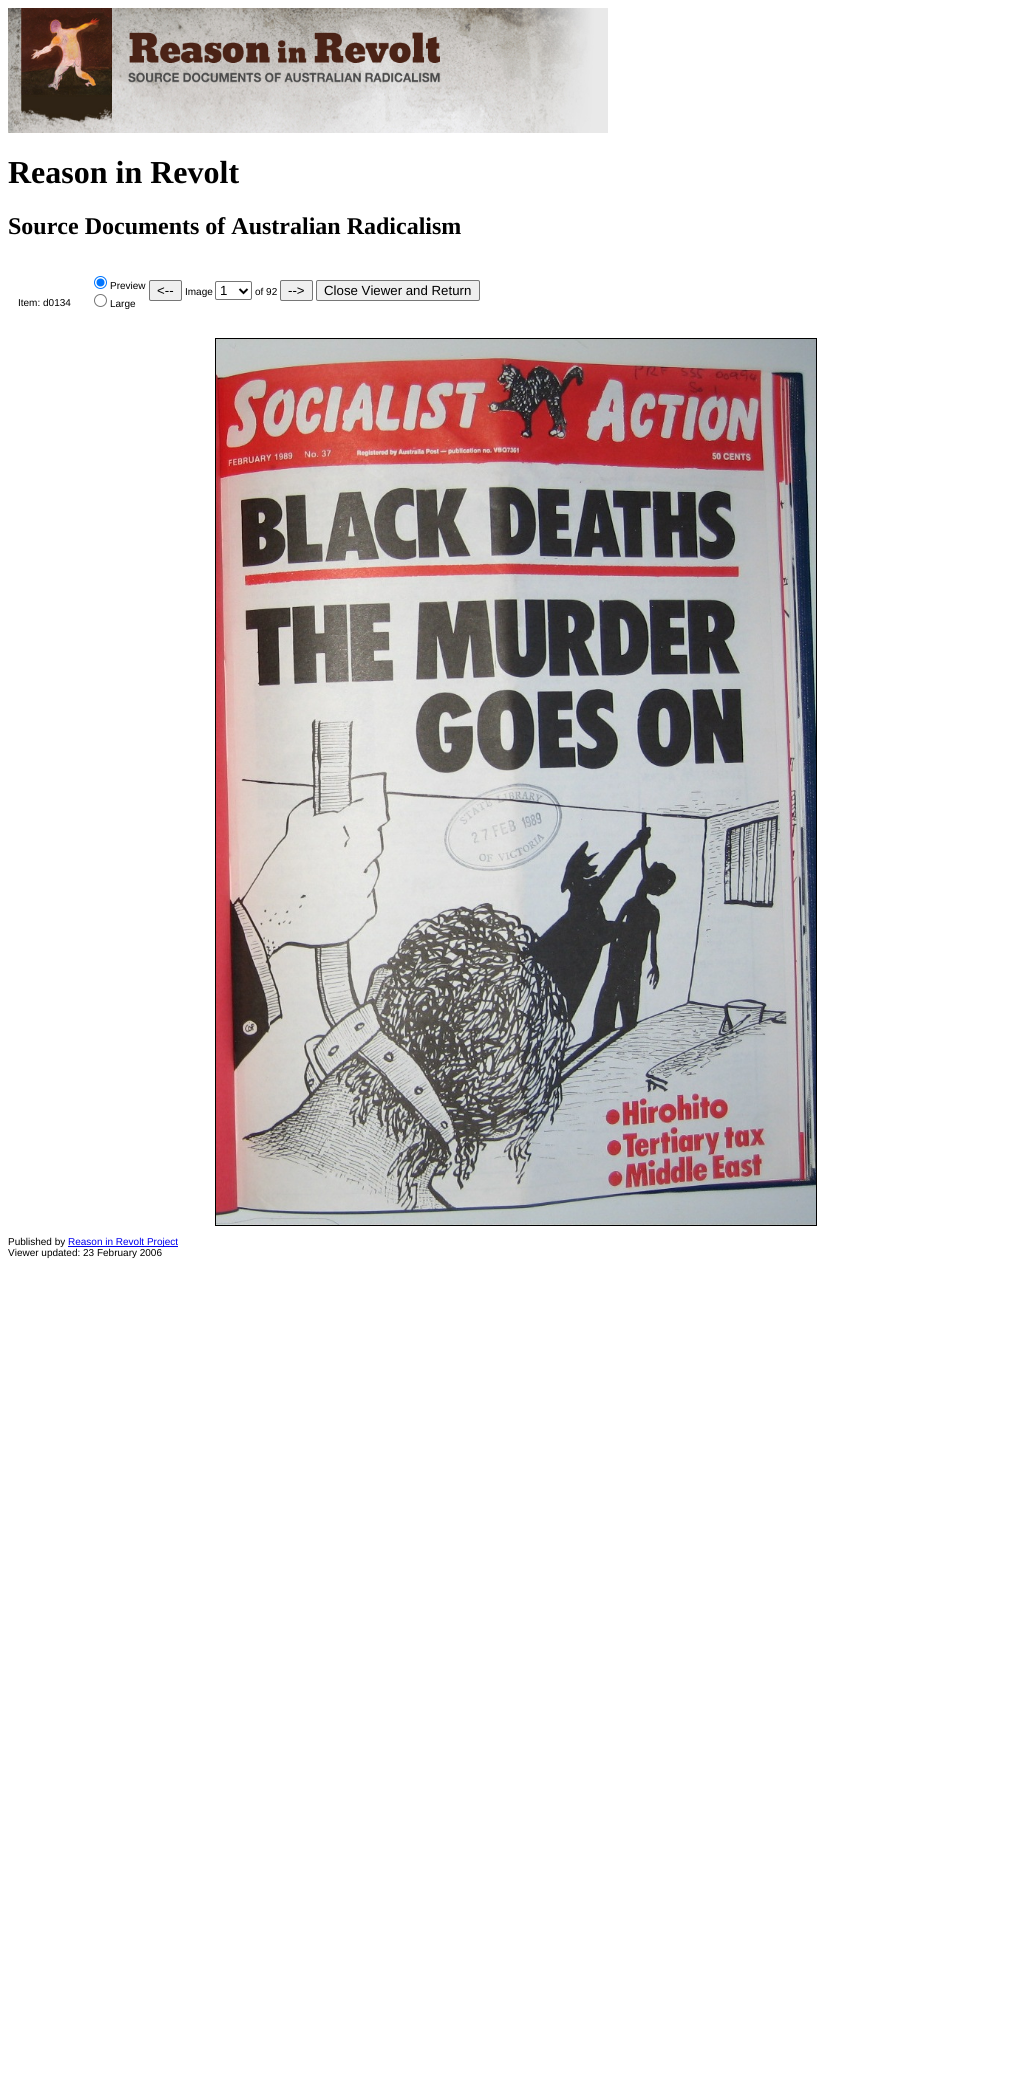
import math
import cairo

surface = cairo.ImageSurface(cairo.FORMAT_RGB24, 1031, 2076)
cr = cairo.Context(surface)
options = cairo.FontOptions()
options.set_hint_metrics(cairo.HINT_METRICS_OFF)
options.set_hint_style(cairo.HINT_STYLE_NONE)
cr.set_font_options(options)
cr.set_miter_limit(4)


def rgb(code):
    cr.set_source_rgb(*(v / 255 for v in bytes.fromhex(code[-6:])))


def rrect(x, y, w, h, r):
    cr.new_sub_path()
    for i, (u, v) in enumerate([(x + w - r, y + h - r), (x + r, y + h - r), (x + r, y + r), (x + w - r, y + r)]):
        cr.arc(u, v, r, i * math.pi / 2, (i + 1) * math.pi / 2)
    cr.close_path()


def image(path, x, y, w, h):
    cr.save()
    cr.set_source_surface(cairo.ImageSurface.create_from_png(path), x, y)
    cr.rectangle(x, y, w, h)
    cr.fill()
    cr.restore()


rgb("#ffffff")
cr.paint()
image("img/1.png", 8, 8, 600, 125)
cr.arc(100.5, 282.5, 6, 0, 2 * math.pi)
rgb("#0075ff")
cr.set_line_width(1)
cr.stroke()
cr.arc(100.5, 282.5, 4, 0, 2 * math.pi)
cr.fill()
cr.arc(100.5, 300.5, 6, 0, 2 * math.pi)
rgb("#767676")
cr.stroke()
rgb("#efefef")
rrect(149.5, 280.5, 32, 20, 1.5)
cr.fill_preserve()
rgb("#767676")
cr.stroke()
rrect(215.5, 281.5, 36, 18, 1.5)
cr.stroke()
cr.new_path()
cr.move_to(239.5, 289)
cr.line_to(243.5, 293)
cr.line_to(247.5, 289)
rgb("#000000")
cr.set_line_width(2)
cr.stroke()
rgb("#efefef")
rrect(280.5, 280.5, 32, 20, 1.5)
cr.fill_preserve()
rgb("#767676")
cr.set_line_width(1)
cr.stroke()
rgb("#efefef")
rrect(316.5, 280.5, 163, 20, 1.5)
cr.fill_preserve()
rgb("#767676")
cr.stroke()
cr.rectangle(215.5, 338.5, 601, 887)
rgb("#000000")
cr.stroke()
image("img/2.png", 216, 339, 600, 886)
rgb("#0000ee")
cr.rectangle(68, 1246, 110, 1)
cr.fill()
cr.select_font_face("Liberation Serif", cairo.FONT_SLANT_NORMAL, cairo.FONT_WEIGHT_BOLD)
cr.set_font_size(32)
rgb("#000000")
cr.move_to(8, 183)
cr.show_text("Reason in Revolt")
cr.set_font_size(24)
cr.move_to(8, 234)
cr.show_text("Source Documents of Australian Radicalism")
cr.select_font_face("Liberation Sans")
cr.set_font_size(10)
for x, y, s in [
    (18, 306, "Item: d0134"),
    (110, 289, "Preview"),
    (110, 307, "Large"),
]:
    cr.move_to(x, y)
    cr.show_text(s)
cr.set_font_size(13.25)
cr.move_to(157, 295)
cr.show_text("<--")
cr.set_font_size(10)
cr.move_to(185, 295)
cr.show_text("Image")
cr.set_font_size(13.25)
cr.move_to(220, 295)
cr.show_text("1")
cr.set_font_size(10)
cr.move_to(255, 295)
cr.show_text("of 92")
cr.set_font_size(13.25)
cr.move_to(288, 295)
cr.show_text("-->")
cr.move_to(324, 295)
cr.show_text("Close Viewer and Return")
cr.set_font_size(10)
cr.move_to(8, 1245)
cr.show_text("Published by")
rgb("#0000ee")
cr.move_to(68, 1245)
cr.show_text("Reason in Revolt Project")
rgb("#000000")
cr.move_to(8, 1256)
cr.show_text("Viewer updated: 23 February 2006")
surface.write_to_png("page.png")
